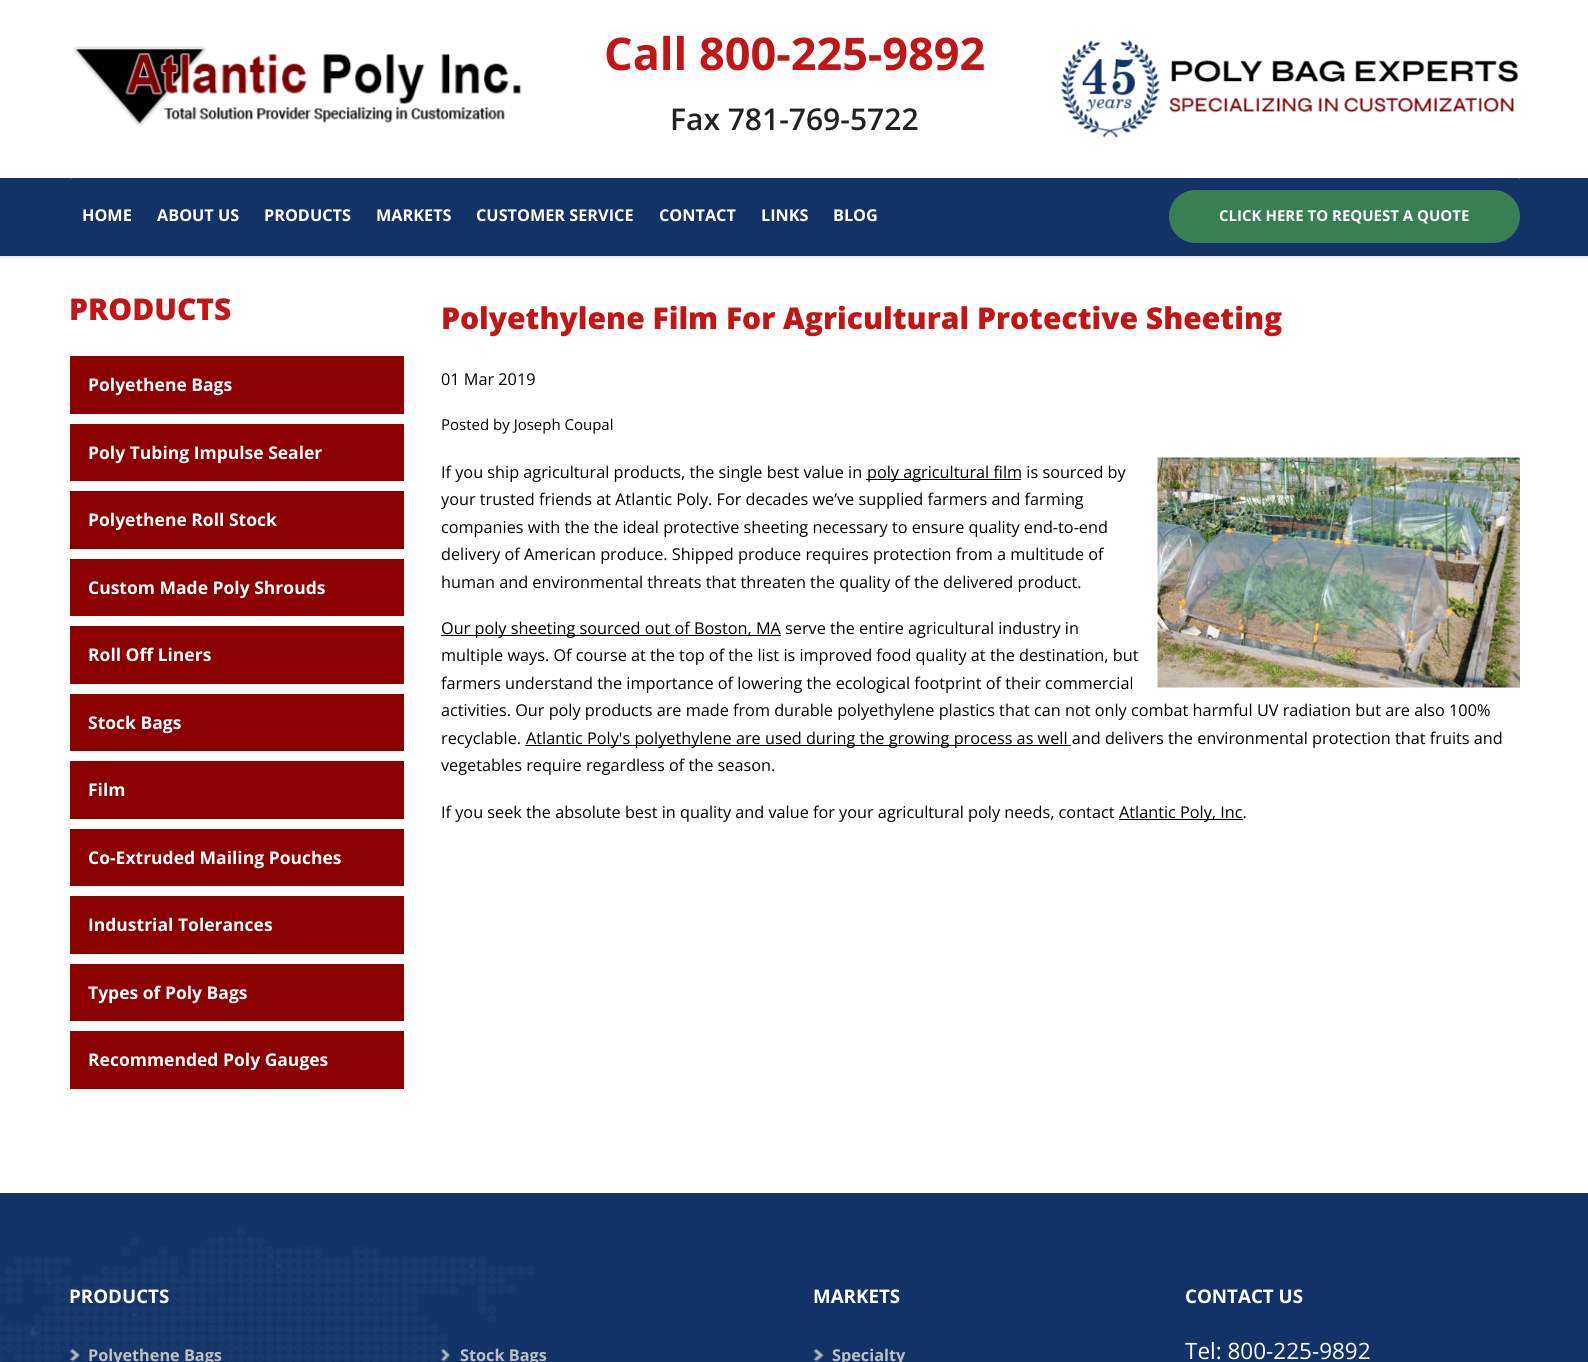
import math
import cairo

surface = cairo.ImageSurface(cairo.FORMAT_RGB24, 1588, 1362)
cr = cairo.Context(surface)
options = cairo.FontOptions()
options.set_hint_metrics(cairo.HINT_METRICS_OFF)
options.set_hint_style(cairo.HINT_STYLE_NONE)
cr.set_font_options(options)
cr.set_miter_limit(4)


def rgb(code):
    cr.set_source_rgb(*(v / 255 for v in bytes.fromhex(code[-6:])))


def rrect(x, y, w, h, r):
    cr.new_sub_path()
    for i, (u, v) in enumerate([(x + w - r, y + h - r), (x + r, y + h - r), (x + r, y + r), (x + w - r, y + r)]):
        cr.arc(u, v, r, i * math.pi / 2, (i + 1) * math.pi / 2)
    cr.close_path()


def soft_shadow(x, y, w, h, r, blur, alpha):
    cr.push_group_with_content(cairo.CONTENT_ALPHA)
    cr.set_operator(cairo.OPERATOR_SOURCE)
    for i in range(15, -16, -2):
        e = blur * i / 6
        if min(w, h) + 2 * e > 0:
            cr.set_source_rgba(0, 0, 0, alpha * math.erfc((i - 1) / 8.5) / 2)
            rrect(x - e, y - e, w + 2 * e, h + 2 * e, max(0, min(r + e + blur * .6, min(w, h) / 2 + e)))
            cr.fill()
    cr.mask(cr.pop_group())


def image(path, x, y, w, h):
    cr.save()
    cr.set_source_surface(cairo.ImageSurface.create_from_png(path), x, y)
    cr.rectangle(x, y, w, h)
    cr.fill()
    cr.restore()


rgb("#ffffff")
cr.paint()
rgb("#000000")
soft_shadow(0, 0, 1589, 256, 0, 3, 0.2)
rgb("#ffffff")
cr.rectangle(0, 0, 1588, 178)
cr.fill()
image("img/1.png", 73, 46, 449, 81)
image("img/2.png", 1060, 40, 459, 98)
rgb("#123368")
cr.rectangle(0, 178, 1588, 78)
cr.fill()
cr.set_source_rgba(1, 1, 1, 0.2)
cr.new_path()
cr.move_to(74, 168)
cr.curve_to(68, 168, 70, 178, 70, 181)
cr.curve_to(70, 179, 72, 178, 74, 178)
cr.line_to(1516, 178)
cr.curve_to(1518, 178, 1520, 179, 1520, 181)
cr.curve_to(1520, 178, 1522, 168, 1516, 168)
cr.close_path()
cr.fill()
rgb("#387f53")
rrect(1169, 190, 351, 53, 26.5)
cr.fill()
for x, y, w, h, color in [
    (70, 356, 334, 58, "#8b0000"),
    (70, 424, 334, 57, "#8b0000"),
    (70, 491, 334, 58, "#8b0000"),
    (70, 559, 334, 57, "#8b0000"),
    (70, 626, 334, 58, "#8b0000"),
    (70, 694, 334, 57, "#8b0000"),
    (70, 761, 334, 58, "#8b0000"),
    (70, 829, 334, 57, "#8b0000"),
    (70, 896, 334, 58, "#8b0000"),
    (70, 964, 334, 57, "#8b0000"),
    (70, 1031, 334, 58, "#8b0000"),
    (866, 479, 155, 1, "#000000"),
]:
    rgb(color)
    cr.rectangle(x, y, w, h)
    cr.fill()
image("img/3.png", 1157, 457, 363, 231)
for x, y, w, h, color in [
    (441, 635, 340, 1, "#000000"),
    (525, 745, 546, 1, "#000000"),
    (1119, 819, 124, 1, "#000000"),
    (0, 1193, 1588, 169, "#123368"),
]:
    rgb(color)
    cr.rectangle(x, y, w, h)
    cr.fill()
image("img/4.png", 0, 1227, 535, 135)
image("img/5.png", 70, 1348, 10, 14)
image("img/6.png", 441, 1348, 9, 14)
image("img/7.png", 813, 1348, 11, 14)
cr.select_font_face("Open Sans", cairo.FONT_SLANT_NORMAL, cairo.FONT_WEIGHT_BOLD)
cr.set_font_size(45)
rgb("#c21516")
cr.move_to(604, 70)
cr.show_text("Call 800-225-9892")
cr.select_font_face("Open Sans SemiBold")
cr.set_font_size(30)
rgb("#222222")
cr.move_to(670, 130)
cr.show_text("Fax 781-769-5722")
cr.select_font_face("Open Sans", cairo.FONT_SLANT_NORMAL, cairo.FONT_WEIGHT_BOLD)
cr.set_font_size(16.25)
rgb("#ffffff")
for x, y, s in [
    (82, 221, "HOME"),
    (157, 221, "ABOUT US"),
    (264, 221, "PRODUCTS"),
    (376, 221, "MARKETS"),
    (476, 221, "CUSTOMER SERVICE"),
    (659, 221, "CONTACT"),
    (761, 221, "LINKS"),
    (833, 221, "BLOG"),
]:
    cr.move_to(x, y)
    cr.show_text(s)
cr.set_font_size(15)
cr.move_to(1219, 221)
cr.show_text("CLICK HERE TO REQUEST A QUOTE")
cr.select_font_face("Open Sans ExtraBold")
cr.set_font_size(30)
rgb("#c21516")
cr.move_to(69, 320)
cr.show_text("PRODUCTS")
cr.select_font_face("Open Sans", cairo.FONT_SLANT_NORMAL, cairo.FONT_WEIGHT_BOLD)
cr.set_font_size(17.5)
rgb("#ffffff")
for x, y, s in [
    (88, 391, "Polyethene Bags"),
    (88, 459, "Poly Tubing Impulse Sealer"),
    (88, 526, "Polyethene Roll Stock"),
    (88, 594, "Custom Made Poly Shrouds"),
    (88, 661, "Roll Off Liners"),
    (88, 729, "Stock Bags"),
    (88, 796, "Film"),
    (88, 864, "Co-Extruded Mailing Pouches"),
    (88, 931, "Industrial Tolerances"),
    (88, 999, "Types of Poly Bags"),
    (88, 1066, "Recommended Poly Gauges"),
]:
    cr.move_to(x, y)
    cr.show_text(s)
cr.select_font_face("Open Sans ExtraBold")
cr.set_font_size(30)
rgb("#c21516")
cr.move_to(441, 329)
cr.show_text("Polyethylene Film For Agricultural Protective Sheeting")
cr.select_font_face("Open Sans")
cr.set_font_size(16.25)
rgb("#000000")
cr.move_to(441, 385)
cr.show_text("01 Mar 2019")
cr.set_font_size(15)
cr.move_to(441, 430)
cr.show_text("Posted by Joseph Coupal")
cr.set_font_size(16.25)
for x, y, s in [
    (441, 478, "If you ship agricultural products, the single best value in"),
    (867, 478, "poly agricultural film is sourced by"),
    (441, 505, "your trusted friends at Atlantic Poly. For decades we’ve supplied farmers and farming"),
    (441, 533, "companies with the the ideal protective sheeting necessary to ensure quality end-to-end"),
    (441, 560, "delivery of American produce. Shipped produce requires protection from a multitude of"),
    (441, 588, "human and environmental threats that threaten the quality of the delivered product."),
    (441, 634, "Our poly sheeting sourced out of Boston, MA serve the entire agricultural industry in"),
    (441, 661, "multiple ways. Of course at the top of the list is improved food quality at the destination, but"),
    (441, 689, "farmers understand the importance of lowering the ecological footprint of their commercial"),
    (441, 716, "activities. Our poly products are made from durable polyethylene plastics that can not only combat harmful UV radiation but are also 100%"),
    (441, 744, "recyclable."),
    (526, 744, "Atlantic Poly's polyethylene are used during the growing process as well and delivers the environmental protection that fruits and"),
    (441, 771, "vegetables require regardless of the season."),
    (441, 818, "If you seek the absolute best in quality and value for your agricultural poly needs, contact"),
    (1119, 818, "Atlantic Poly, Inc."),
]:
    cr.move_to(x, y)
    cr.show_text(s)
cr.select_font_face("Open Sans", cairo.FONT_SLANT_NORMAL, cairo.FONT_WEIGHT_BOLD)
cr.set_font_size(18.75)
rgb("#ffffff")
cr.move_to(69, 1303)
cr.show_text("PRODUCTS")
cr.set_font_size(16.25)
rgb("#bcc0c4")
cr.move_to(88, 1361)
cr.show_text("Polyethene Bags")
cr.move_to(460, 1361)
cr.show_text("Stock Bags")
cr.set_font_size(18.75)
rgb("#ffffff")
cr.move_to(813, 1303)
cr.show_text("MARKETS")
cr.set_font_size(16.25)
rgb("#bcc0c4")
cr.move_to(832, 1361)
cr.show_text("Specialty")
cr.set_font_size(18.75)
rgb("#ffffff")
cr.move_to(1185, 1303)
cr.show_text("CONTACT US")
cr.select_font_face("Open Sans")
cr.set_font_size(22.5)
cr.move_to(1185, 1359)
cr.show_text("Tel: 800-225-9892")
surface.write_to_png("page.png")
